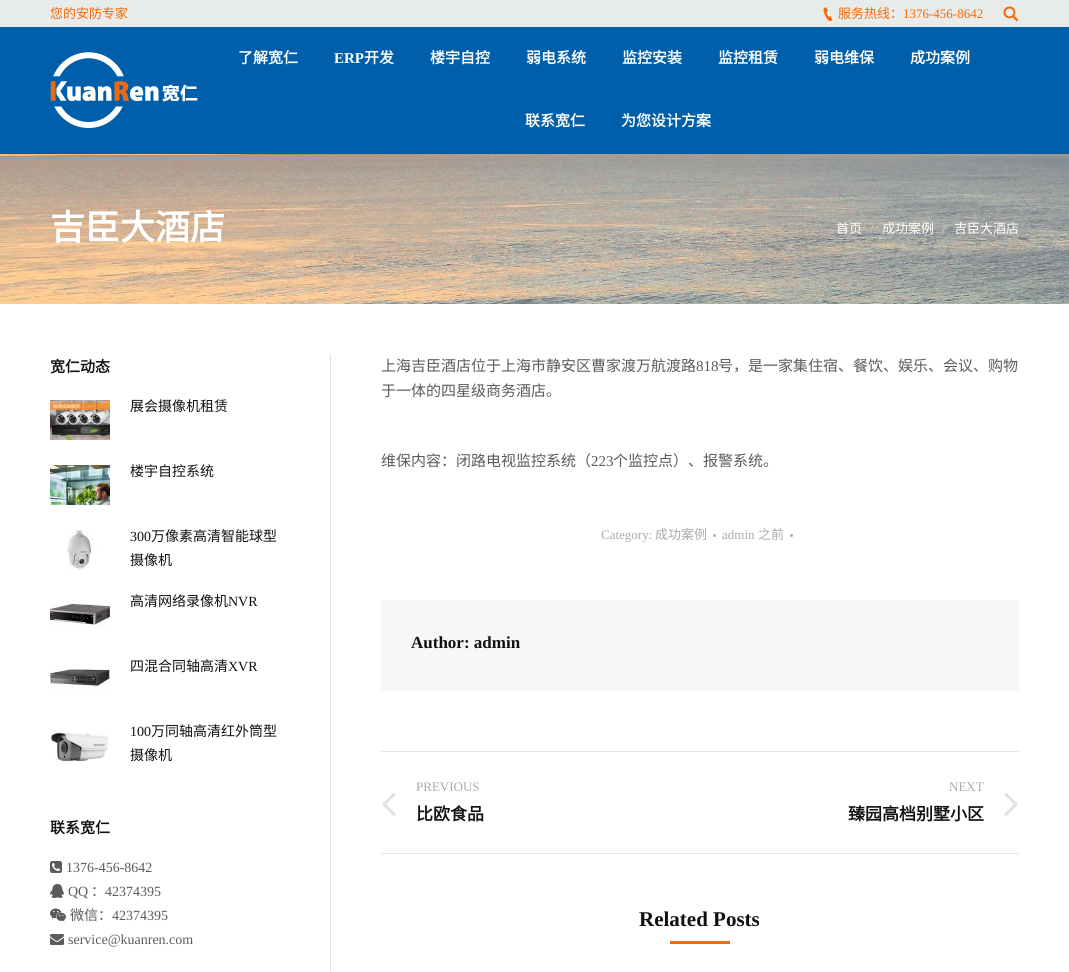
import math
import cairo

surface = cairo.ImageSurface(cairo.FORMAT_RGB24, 1069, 972)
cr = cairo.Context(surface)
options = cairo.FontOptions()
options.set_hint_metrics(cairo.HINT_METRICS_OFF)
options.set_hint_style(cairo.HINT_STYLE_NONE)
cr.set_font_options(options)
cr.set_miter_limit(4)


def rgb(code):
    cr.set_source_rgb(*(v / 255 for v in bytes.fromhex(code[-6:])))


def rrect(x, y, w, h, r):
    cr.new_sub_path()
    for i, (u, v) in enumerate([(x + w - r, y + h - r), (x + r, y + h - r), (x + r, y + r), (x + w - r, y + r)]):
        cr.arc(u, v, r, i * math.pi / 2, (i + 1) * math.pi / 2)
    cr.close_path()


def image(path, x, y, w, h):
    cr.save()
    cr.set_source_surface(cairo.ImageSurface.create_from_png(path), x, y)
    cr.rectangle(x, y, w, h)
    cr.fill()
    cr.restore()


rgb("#ffffff")
cr.paint()
for x, y, w, h, color in [
    (0, 27, 1069, 126, "#005faa"),
    (0, 153, 1069, 1, "#085a9a"),
    (0, 0, 1069, 27, "#e7ecea"),
]:
    rgb(color)
    cr.rectangle(x, y, w, h)
    cr.fill()
image("img/1.png", 823, 7, 10, 14)
image("img/2.png", 1003, 6, 16, 16)
image("img/3.png", 50, 52, 148, 76)
image("img/4.png", 0, 154, 1069, 150)
rgb("#e3e3e3")
cr.rectangle(330, 354, 1, 618)
cr.fill()
image("img/5.png", 50, 400, 60, 40)
image("img/6.png", 50, 465, 60, 40)
image("img/7.png", 67, 530, 31, 40)
image("img/8.png", 50, 603, 60, 24)
image("img/9.png", 50, 668, 60, 24)
image("img/10.png", 51, 732, 57, 30)
image("img/11.png", 50, 861, 12, 12)
image("img/12.png", 50, 884, 14, 14)
image("img/13.png", 50, 908, 16, 14)
image("img/14.png", 50, 934, 14, 11)
rgb("#adadad")
cr.arc(714.5, 535.5, 1.5, 0, 2 * math.pi)
cr.fill()
cr.arc(791.5, 535.5, 1.5, 0, 2 * math.pi)
cr.fill()
rgb("#f7f7f7")
rrect(381, 600, 638, 91, 2)
cr.fill()
rgb("#e3e3e3")
cr.rectangle(381, 751, 638, 1)
cr.fill()
cr.rectangle(381, 853, 638, 1)
cr.fill()
image("img/15.png", 382, 793, 14, 23)
image("img/16.png", 1004, 793, 14, 23)
rgb("#f36807")
cr.rectangle(670, 941, 60, 3)
cr.fill()
cr.select_font_face("Noto Sans CJK SC")
cr.set_font_size(13)
cr.move_to(50, 18)
cr.show_text("您的安防专家")
cr.move_to(838, 18)
cr.show_text("服务热线：")
cr.select_font_face("Liberation Serif")
cr.move_to(903, 18)
cr.show_text("1376-456-8642")
cr.select_font_face("Noto Sans CJK SC", cairo.FONT_SLANT_NORMAL, cairo.FONT_WEIGHT_BOLD)
cr.set_font_size(15)
rgb("#ffffff")
cr.move_to(238, 63)
cr.show_text("了解宽仁")
cr.select_font_face("Liberation Serif", cairo.FONT_SLANT_NORMAL, cairo.FONT_WEIGHT_BOLD)
cr.move_to(334, 63)
cr.show_text("ERP")
cr.select_font_face("Noto Sans CJK SC", cairo.FONT_SLANT_NORMAL, cairo.FONT_WEIGHT_BOLD)
for x, y, s in [
    (364, 63, "开发"),
    (430, 63, "楼宇自控"),
    (526, 63, "弱电系统"),
    (622, 63, "监控安装"),
    (718, 63, "监控租赁"),
    (814, 63, "弱电维保"),
    (910, 63, "成功案例"),
    (525, 126, "联系宽仁"),
    (621, 126, "为您设计方案"),
]:
    cr.move_to(x, y)
    cr.show_text(s)
cr.set_font_size(35)
cr.move_to(50, 240)
cr.show_text("吉臣大酒店")
cr.select_font_face("Noto Sans CJK SC")
cr.set_font_size(13)
cr.move_to(836, 233)
cr.show_text("首页")
cr.select_font_face("Liberation Serif")
rgb("#d3d2ce")
cr.move_to(870, 233)
cr.show_text("/")
cr.select_font_face("Noto Sans CJK SC")
rgb("#ffffff")
cr.move_to(882, 233)
cr.show_text("成功案例")
cr.select_font_face("Liberation Serif")
rgb("#d3d2ce")
cr.move_to(942, 233)
cr.show_text("/")
cr.select_font_face("Noto Sans CJK SC")
rgb("#ffffff")
cr.move_to(954, 233)
cr.show_text("吉臣大酒店")
cr.select_font_face("Noto Sans CJK SC", cairo.FONT_SLANT_NORMAL, cairo.FONT_WEIGHT_BOLD)
cr.set_font_size(15)
rgb("#111111")
cr.move_to(50, 372)
cr.show_text("宽仁动态")
cr.select_font_face("Noto Sans CJK SC")
cr.set_font_size(14)
cr.move_to(130, 411)
cr.show_text("展会摄像机租赁")
cr.move_to(130, 476)
cr.show_text("楼宇自控系统")
cr.select_font_face("Liberation Serif")
cr.move_to(130, 541)
cr.show_text("300")
cr.select_font_face("Noto Sans CJK SC")
for x, y, s in [
    (151, 541, "万像素高清智能球型"),
    (130, 565, "摄像机"),
    (130, 606, "高清网络录像机"),
]:
    cr.move_to(x, y)
    cr.show_text(s)
cr.select_font_face("Liberation Serif")
cr.move_to(228, 606)
cr.show_text("NVR")
cr.select_font_face("Noto Sans CJK SC")
cr.move_to(130, 671)
cr.show_text("四混合同轴高清")
cr.select_font_face("Liberation Serif")
cr.move_to(228, 671)
cr.show_text("XVR")
cr.move_to(130, 736)
cr.show_text("100")
cr.select_font_face("Noto Sans CJK SC")
cr.move_to(151, 736)
cr.show_text("万同轴高清红外筒型")
cr.move_to(130, 760)
cr.show_text("摄像机")
cr.select_font_face("Noto Sans CJK SC", cairo.FONT_SLANT_NORMAL, cairo.FONT_WEIGHT_BOLD)
cr.set_font_size(15)
cr.move_to(50, 833)
cr.show_text("联系宽仁")
cr.select_font_face("Liberation Serif")
cr.set_font_size(14)
rgb("#5b5b5b")
cr.move_to(66, 872)
cr.show_text("1376-456-8642")
cr.move_to(68, 896)
cr.show_text("QQ")
cr.select_font_face("Noto Sans CJK SC")
cr.move_to(91, 896)
cr.show_text("：")
cr.select_font_face("Liberation Serif")
cr.move_to(105, 896)
cr.show_text("42374395")
cr.select_font_face("Noto Sans CJK SC")
cr.move_to(70, 920)
cr.show_text("微信：")
cr.select_font_face("Liberation Serif")
cr.move_to(112, 920)
cr.show_text("42374395")
cr.move_to(68, 944)
cr.show_text("service@kuanren.com")
cr.select_font_face("Noto Sans CJK SC")
cr.set_font_size(15)
cr.move_to(381, 371)
cr.show_text("上海吉臣酒店位于上海市静安区曹家渡万航渡路")
cr.select_font_face("Liberation Serif")
cr.move_to(696, 371)
cr.show_text("818")
cr.select_font_face("Noto Sans CJK SC")
for x, y, s in [
    (718, 371, "号，是一家集住宿、餐饮、娱乐、会议、购物"),
    (381, 396, "于一体的四星级商务酒店。"),
    (381, 466, "维保内容：闭路电视监控系统（"),
]:
    cr.move_to(x, y)
    cr.show_text(s)
cr.select_font_face("Liberation Serif")
cr.move_to(591, 466)
cr.show_text("223")
cr.select_font_face("Noto Sans CJK SC")
cr.move_to(613, 466)
cr.show_text("个监控点）、报警系统。")
cr.select_font_face("Liberation Serif")
cr.set_font_size(13)
rgb("#aaaaaa")
cr.move_to(601, 539)
cr.show_text("Category:")
cr.select_font_face("Noto Sans CJK SC")
cr.move_to(655, 539)
cr.show_text("成功案例")
cr.select_font_face("Liberation Serif")
cr.move_to(722, 539)
cr.show_text("admin")
cr.select_font_face("Noto Sans CJK SC")
cr.move_to(758, 539)
cr.show_text("之前")
cr.select_font_face("Liberation Serif", cairo.FONT_SLANT_NORMAL, cairo.FONT_WEIGHT_BOLD)
cr.set_font_size(17)
rgb("#111111")
cr.move_to(411, 648)
cr.show_text("Author: admin")
cr.select_font_face("Liberation Serif")
cr.set_font_size(13)
rgb("#aaaaaa")
cr.move_to(416, 791)
cr.show_text("PREVIOUS")
cr.select_font_face("Noto Sans CJK SC", cairo.FONT_SLANT_NORMAL, cairo.FONT_WEIGHT_BOLD)
cr.set_font_size(17)
rgb("#111111")
cr.move_to(416, 820)
cr.show_text("比欧食品")
cr.select_font_face("Liberation Serif")
cr.set_font_size(13)
rgb("#aaaaaa")
cr.move_to(949, 791)
cr.show_text("NEXT")
cr.select_font_face("Noto Sans CJK SC", cairo.FONT_SLANT_NORMAL, cairo.FONT_WEIGHT_BOLD)
cr.set_font_size(17)
rgb("#111111")
cr.move_to(848, 820)
cr.show_text("臻园高档别墅小区")
cr.select_font_face("Liberation Serif", cairo.FONT_SLANT_NORMAL, cairo.FONT_WEIGHT_BOLD)
cr.set_font_size(21)
cr.move_to(639, 926)
cr.show_text("Related Posts")
surface.write_to_png("page.png")
